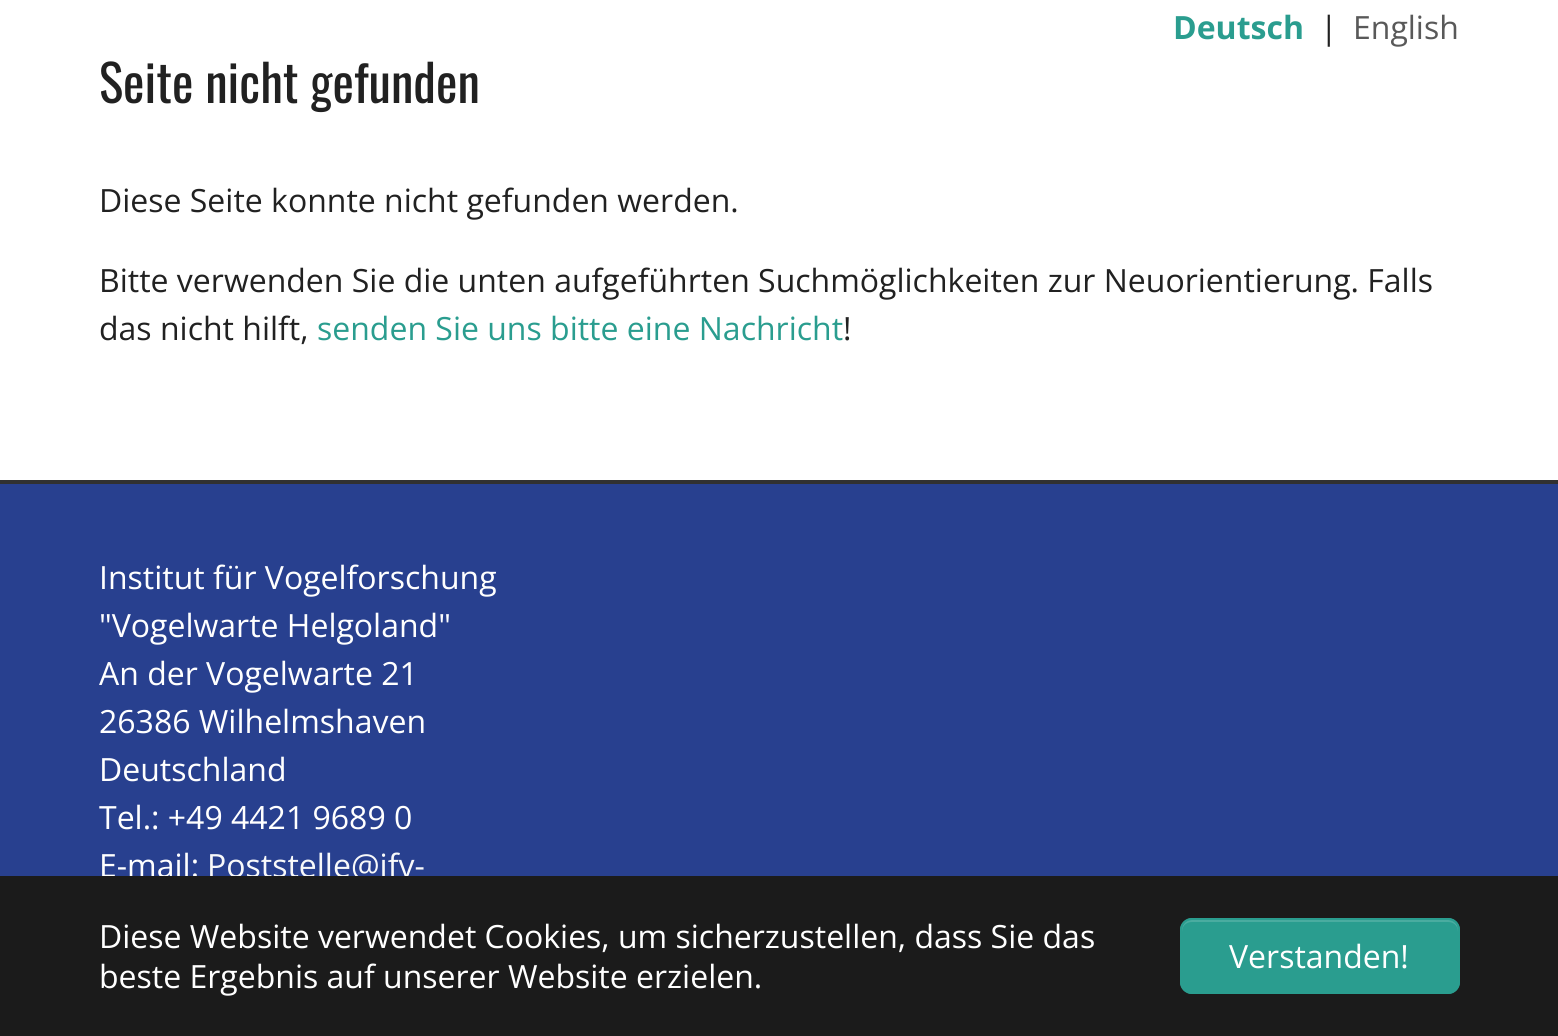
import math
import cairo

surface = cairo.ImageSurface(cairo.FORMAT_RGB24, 1558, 1036)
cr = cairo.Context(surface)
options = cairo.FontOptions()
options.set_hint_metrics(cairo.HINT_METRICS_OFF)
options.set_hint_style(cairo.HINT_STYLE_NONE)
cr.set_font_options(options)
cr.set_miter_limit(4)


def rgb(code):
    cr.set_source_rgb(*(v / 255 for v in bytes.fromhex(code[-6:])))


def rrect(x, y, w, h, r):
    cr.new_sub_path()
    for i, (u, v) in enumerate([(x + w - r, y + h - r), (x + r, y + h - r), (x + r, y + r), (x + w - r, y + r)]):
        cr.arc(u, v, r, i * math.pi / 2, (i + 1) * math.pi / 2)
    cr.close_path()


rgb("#ffffff")
cr.paint()
rgb("#313131")
cr.rectangle(0, 480, 1558, 4)
cr.fill()
rgb("#28408f")
cr.rectangle(0, 484, 1558, 392)
cr.fill()
cr.select_font_face("Open Sans", cairo.FONT_SLANT_NORMAL, cairo.FONT_WEIGHT_BOLD)
cr.set_font_size(32)
rgb("#2a9d8f")
cr.move_to(1173, 39)
cr.show_text("Deutsch")
cr.select_font_face("Open Sans")
rgb("#212121")
cr.move_to(1320, 39)
cr.show_text("|")
rgb("#595959")
cr.move_to(1353, 39)
cr.show_text("English")
cr.select_font_face("Oswald")
cr.set_font_size(51)
rgb("#212121")
cr.move_to(99, 103)
cr.show_text("Seite nicht gefunden")
cr.select_font_face("Open Sans")
cr.set_font_size(32)
for x, y, s in [
    (99, 212, "Diese Seite konnte nicht gefunden werden."),
    (99, 292, "Bitte verwenden Sie die unten aufgeführten Suchmöglichkeiten zur Neuorientierung. Falls"),
    (99, 340, "das nicht hilft,"),
]:
    cr.move_to(x, y)
    cr.show_text(s)
rgb("#2a9d8f")
cr.move_to(317, 340)
cr.show_text("senden Sie uns bitte eine Nachricht")
rgb("#212121")
cr.move_to(843, 340)
cr.show_text("!")
rgb("#ffffff")
for x, y, s in [
    (99, 589, "Institut für Vogelforschung"),
    (99, 637, "\"Vogelwarte Helgoland\""),
    (99, 685, "An der Vogelwarte 21"),
    (99, 733, "26386 Wilhelmshaven"),
    (99, 781, "Deutschland"),
    (99, 829, "Tel.: +49 4421 9689 0"),
    (99, 877, "E-mail:"),
]:
    cr.move_to(x, y)
    cr.show_text(s)
rgb("#f8f9fa")
cr.move_to(207, 877)
cr.show_text("Poststelle@ifv-")
rgb("#1b1b1b")
cr.rectangle(0, 876, 1558, 160)
cr.fill()
rgb("#ffffff")
cr.move_to(99, 948)
cr.show_text("Diese Website verwendet Cookies, um sicherzustellen, dass Sie das")
cr.move_to(99, 988)
cr.show_text("beste Ergebnis auf unserer Website erzielen.")
rgb("#2a9d8f")
rrect(1180, 918, 280, 76, 12)
cr.fill()
rgb("#4aaca0")
cr.new_path()
cr.move_to(1192, 922)
cr.line_to(1448, 922)
cr.curve_to(1454, 922, 1458, 926, 1458, 932)
cr.line_to(1458, 930)
cr.curve_to(1458, 924, 1454, 920, 1448, 920)
cr.line_to(1192, 920)
cr.curve_to(1186, 920, 1182, 924, 1182, 930)
cr.line_to(1182, 932)
cr.curve_to(1182, 926, 1186, 922, 1192, 922)
cr.close_path()
cr.fill()
rrect(1181, 919, 278, 74, 11)
rgb("#2a9d8f")
cr.stroke()
rgb("#ffffff")
cr.move_to(1229, 968)
cr.show_text("Verstanden!")
surface.write_to_png("page.png")
